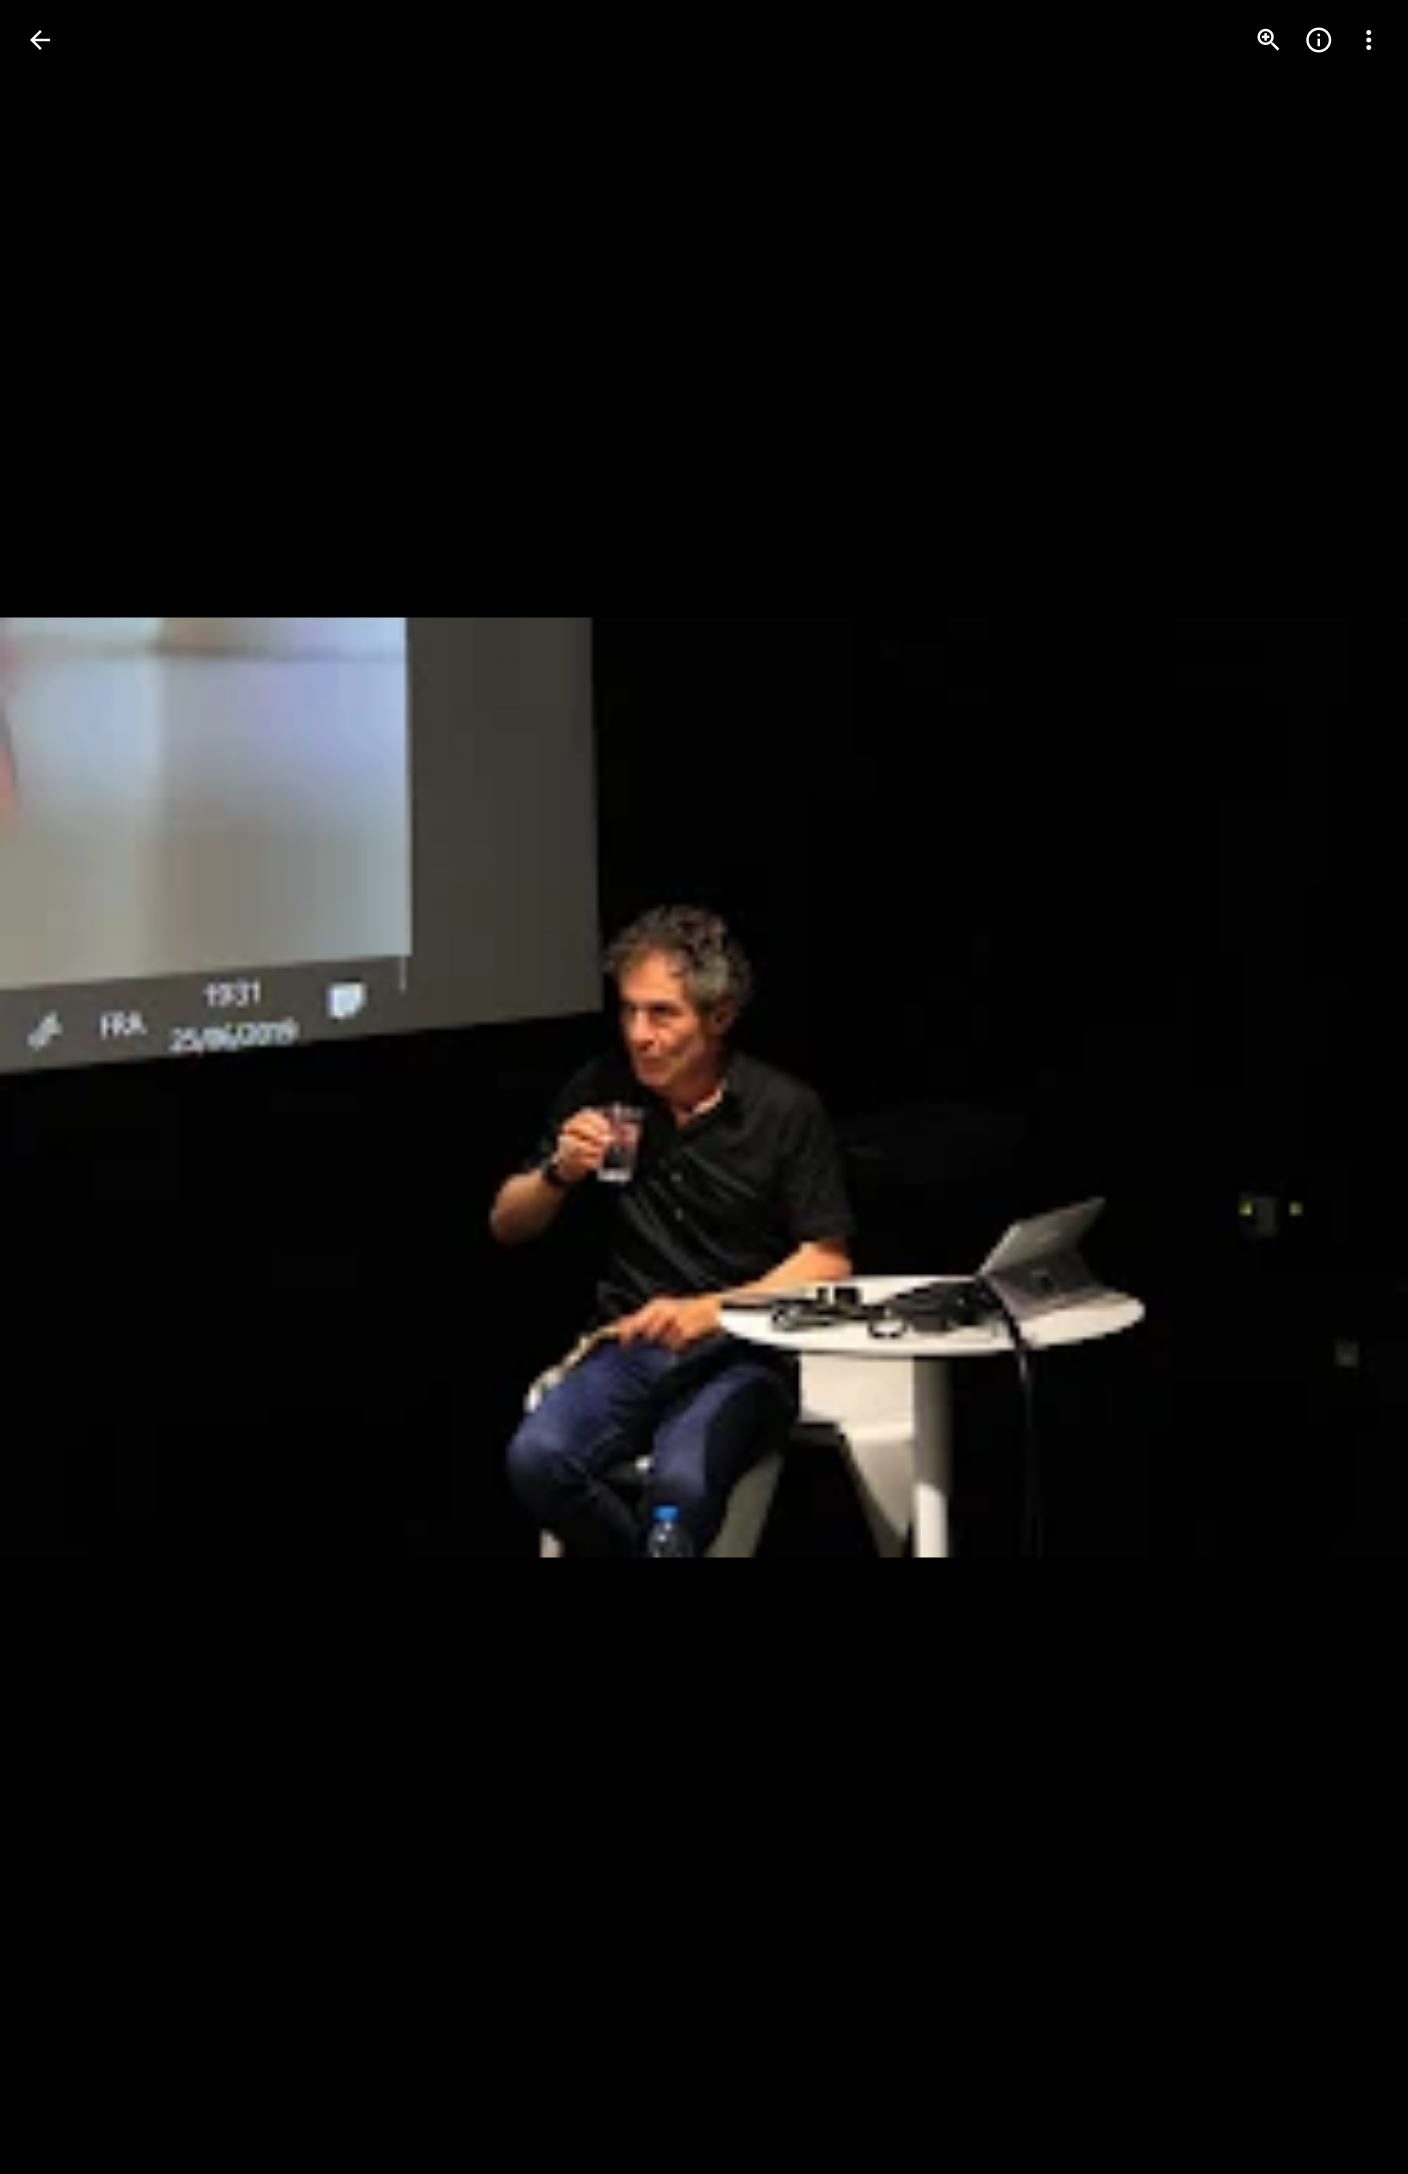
import math
import cairo

surface = cairo.ImageSurface(cairo.FORMAT_RGB24, 1408, 2174)
cr = cairo.Context(surface)
options = cairo.FontOptions()
options.set_hint_metrics(cairo.HINT_METRICS_OFF)
options.set_hint_style(cairo.HINT_STYLE_NONE)
cr.set_font_options(options)
cr.set_miter_limit(4)


def rgb(code):
    cr.set_source_rgb(*(v / 255 for v in bytes.fromhex(code[-6:])))


def image(path, x, y, w, h):
    cr.save()
    cr.set_source_surface(cairo.ImageSurface.create_from_png(path), x, y)
    cr.rectangle(x, y, w, h)
    cr.fill()
    cr.restore()


rgb("#000000")
cr.paint()
image("img/1.png", 30, 30, 20, 20)
image("img/2.png", 1257, 28, 23, 23)
image("img/3.png", 1306, 27, 26, 26)
image("img/4.png", 1366, 30, 6, 20)
image("img/5.png", 0, 617, 1408, 941)
surface.write_to_png("page.png")
